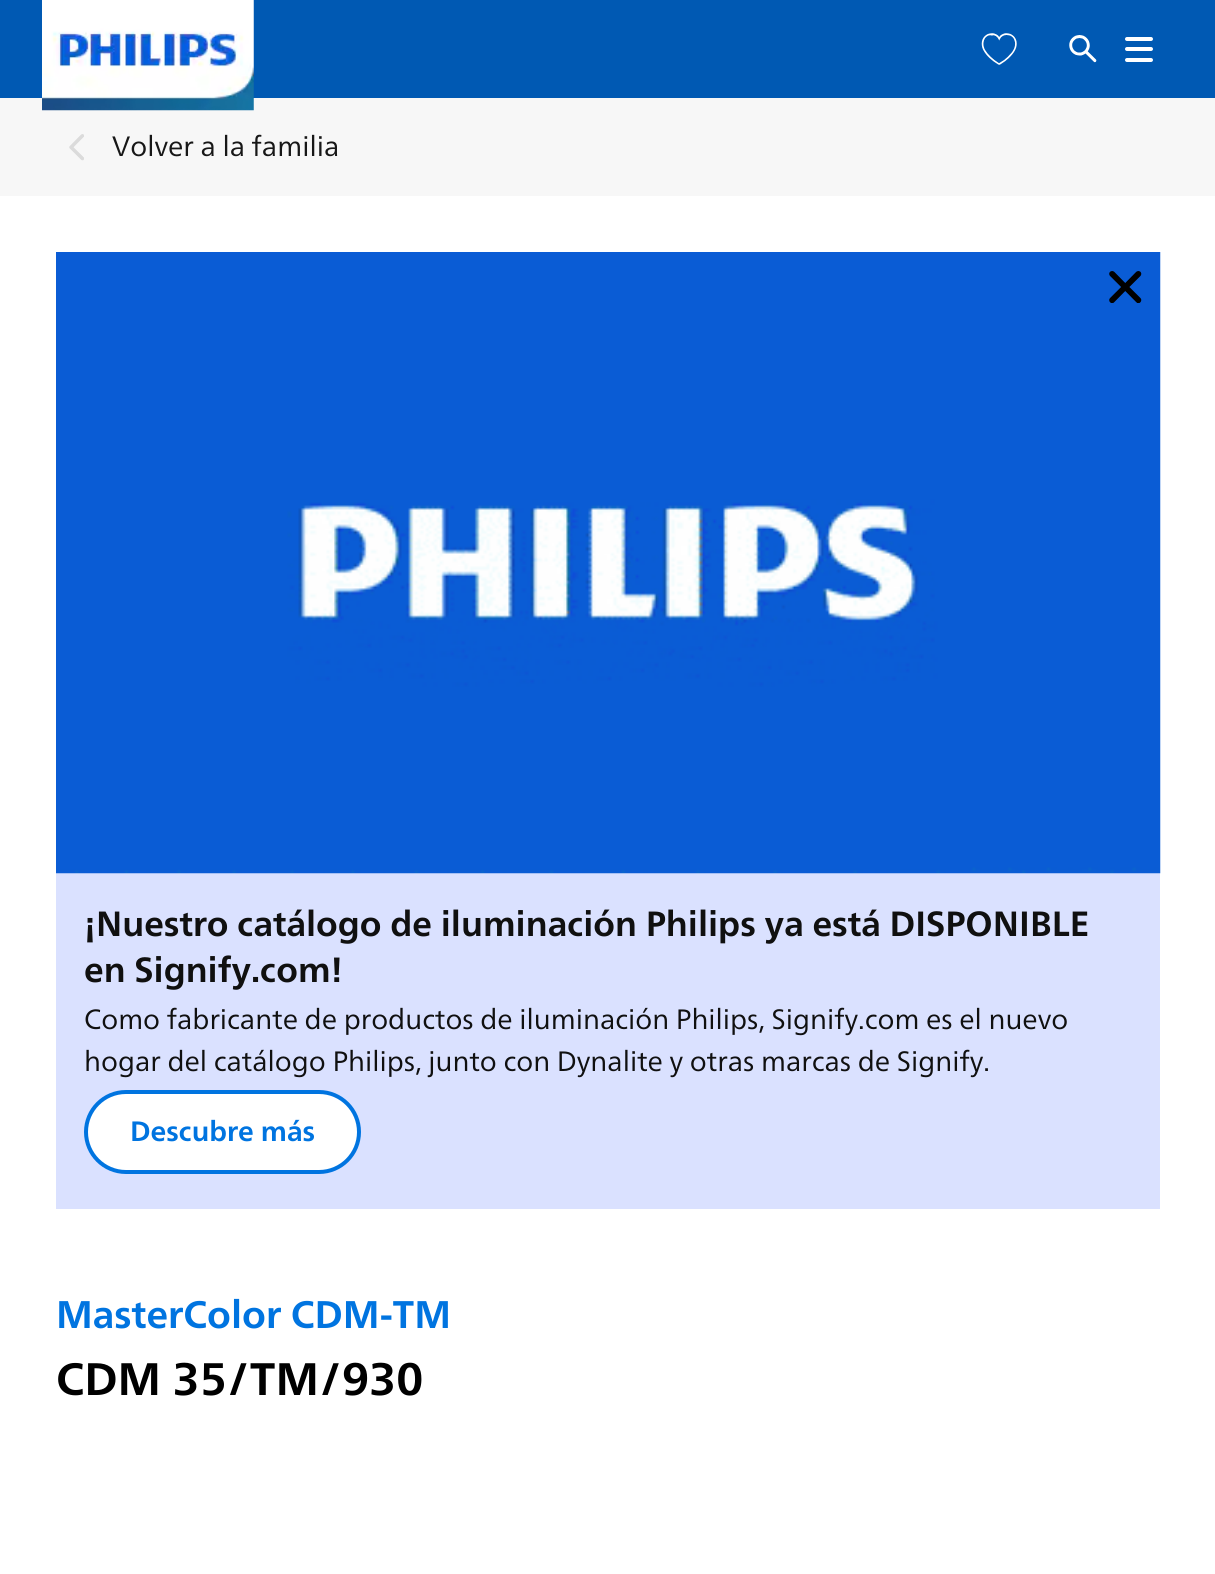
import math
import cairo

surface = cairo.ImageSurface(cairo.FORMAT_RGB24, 1215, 1574)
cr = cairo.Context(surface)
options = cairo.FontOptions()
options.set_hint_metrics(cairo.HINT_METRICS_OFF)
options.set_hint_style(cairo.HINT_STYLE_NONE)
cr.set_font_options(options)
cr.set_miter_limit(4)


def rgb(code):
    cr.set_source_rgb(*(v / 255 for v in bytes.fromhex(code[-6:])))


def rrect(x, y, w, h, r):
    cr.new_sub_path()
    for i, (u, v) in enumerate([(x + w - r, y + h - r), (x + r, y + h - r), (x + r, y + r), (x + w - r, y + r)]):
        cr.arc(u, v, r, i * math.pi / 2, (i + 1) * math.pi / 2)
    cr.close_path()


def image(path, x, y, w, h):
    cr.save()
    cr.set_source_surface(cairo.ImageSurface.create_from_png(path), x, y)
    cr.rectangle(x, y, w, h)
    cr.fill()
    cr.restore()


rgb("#ffffff")
cr.paint()
rgb("#0059b3")
cr.rectangle(0, 0, 1215, 98)
cr.fill()
rgb("#f7f7f7")
cr.rectangle(0, 98, 1215, 98)
cr.fill()
image("img/1.png", 42, 0, 212, 111)
image("img/2.png", 981, 33, 36, 32)
image("img/3.png", 1069, 35, 28, 28)
rgb("#ffffff")
rrect(1125, 37, 28, 4, 2)
cr.fill()
rrect(1125, 47, 28, 4, 2)
cr.fill()
rrect(1125, 58, 28, 4, 2)
cr.fill()
image("img/4.png", 69, 134, 15, 27)
rgb("#dae1ff")
cr.rectangle(56, 873, 1104, 336)
cr.fill()
image("img/5.png", 56, 252, 1105, 622)
image("img/6.png", 1109, 271, 33, 32)
rgb("#ffffff")
rrect(86, 1092, 273, 80, 40)
cr.fill_preserve()
rgb("#0074e0")
cr.set_line_width(4)
cr.stroke()
cr.select_font_face("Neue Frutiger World")
cr.set_font_size(28)
rgb("#171717")
cr.move_to(112, 156)
cr.show_text("Volver a la familia")
cr.select_font_face("Neue Frutiger World", cairo.FONT_SLANT_NORMAL, cairo.FONT_WEIGHT_BOLD)
cr.set_font_size(35)
rgb("#101010")
cr.move_to(84, 936)
cr.show_text("¡Nuestro catálogo de iluminación Philips ya está DISPONIBLE")
cr.move_to(84, 982)
cr.show_text("en Signify.com!")
cr.select_font_face("Neue Frutiger World")
cr.set_font_size(28)
cr.move_to(84, 1029)
cr.show_text("Como fabricante de productos de iluminación Philips, Signify.com es el nuevo")
cr.move_to(84, 1071)
cr.show_text("hogar del catálogo Philips, junto con Dynalite y otras marcas de Signify.")
cr.select_font_face("Neue Frutiger World", cairo.FONT_SLANT_NORMAL, cairo.FONT_WEIGHT_BOLD)
rgb("#0074e0")
cr.move_to(130, 1141)
cr.show_text("Descubre más")
cr.set_font_size(38.5)
cr.move_to(56, 1328)
cr.show_text("MasterColor CDM-TM")
cr.set_font_size(45.5)
rgb("#000000")
cr.move_to(56, 1395)
cr.show_text("CDM 35/TM/930")
surface.write_to_png("page.png")
